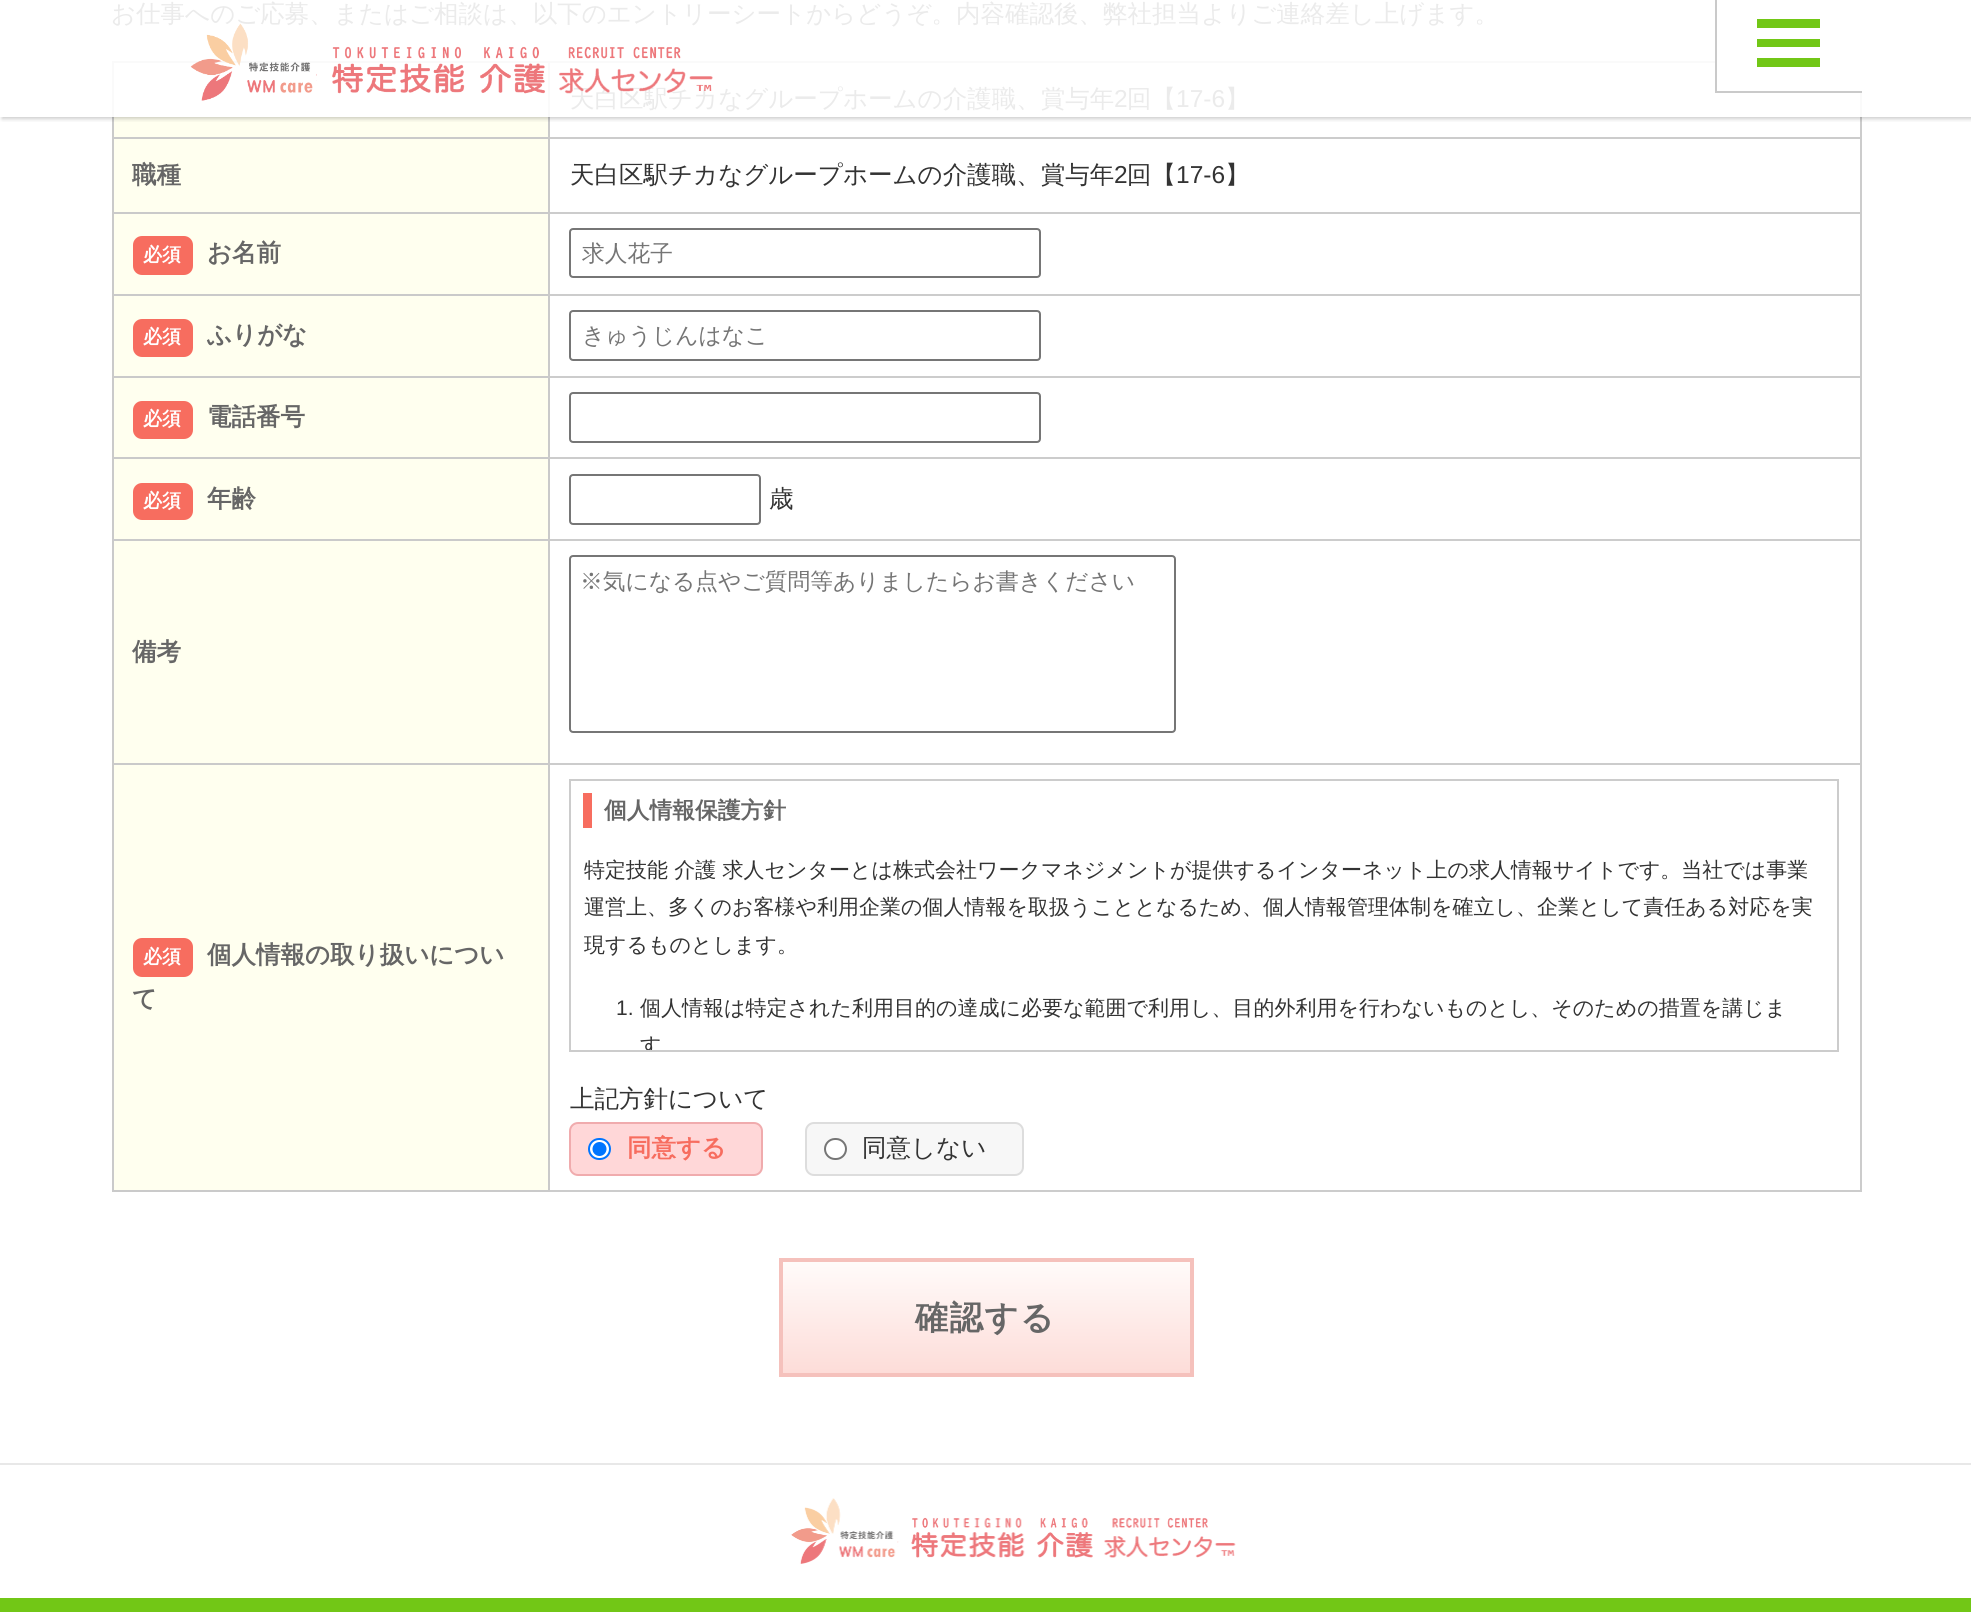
import math
import cairo

surface = cairo.ImageSurface(cairo.FORMAT_RGB24, 1971, 1612)
cr = cairo.Context(surface)
options = cairo.FontOptions()
options.set_hint_metrics(cairo.HINT_METRICS_OFF)
options.set_hint_style(cairo.HINT_STYLE_NONE)
cr.set_font_options(options)
cr.set_miter_limit(4)


def rgb(code):
    cr.set_source_rgb(*(v / 255 for v in bytes.fromhex(code[-6:])))


def tracked(x, y, s, letter, word):
    cr.move_to(x, y)
    for ch in s:
        cr.show_text(ch)
        cr.rel_move_to(letter + word * (ch == ' '), 0)


def rrect(x, y, w, h, r):
    cr.new_sub_path()
    for i, (u, v) in enumerate([(x + w - r, y + h - r), (x + r, y + h - r), (x + r, y + r), (x + w - r, y + r)]):
        cr.arc(u, v, r, i * math.pi / 2, (i + 1) * math.pi / 2)
    cr.close_path()


def soft_shadow(x, y, w, h, r, blur, alpha):
    cr.push_group_with_content(cairo.CONTENT_ALPHA)
    cr.set_operator(cairo.OPERATOR_SOURCE)
    for i in range(15, -16, -2):
        e = blur * i / 6
        if min(w, h) + 2 * e > 0:
            cr.set_source_rgba(0, 0, 0, alpha * math.erfc((i - 1) / 8.5) / 2)
            rrect(x - e, y - e, w + 2 * e, h + 2 * e, max(0, min(r + e + blur * .6, min(w, h) / 2 + e)))
            cr.fill()
    cr.mask(cr.pop_group())


def image(path, x, y, w, h):
    cr.save()
    cr.set_source_surface(cairo.ImageSurface.create_from_png(path), x, y)
    cr.rectangle(x, y, w, h)
    cr.fill()
    cr.restore()


rgb("#ffffff")
cr.paint()
for x, y, w, h, color in [
    (114, 117, 434, 20, "#ffffef"),
    (112, 212, 438, 2, "#cacaca"),
    (112, 294, 438, 2, "#cacaca"),
    (112, 376, 438, 2, "#cacaca"),
    (112, 457, 438, 2, "#cacaca"),
    (112, 539, 438, 2, "#cacaca"),
    (112, 763, 438, 2, "#cacaca"),
    (1860, 117, 2, 1075, "#cccccc"),
    (548, 1190, 1314, 2, "#cccccc"),
    (548, 763, 2, 429, "#cacaca"),
    (548, 763, 1314, 2, "#cccccc"),
    (548, 539, 2, 226, "#cacaca"),
    (548, 539, 1314, 2, "#cccccc"),
    (548, 457, 2, 84, "#cacaca"),
    (548, 457, 1314, 2, "#cccccc"),
    (548, 376, 2, 83, "#cacaca"),
    (548, 376, 1314, 2, "#cccccc"),
    (548, 294, 2, 84, "#cacaca"),
    (548, 294, 1314, 2, "#cccccc"),
    (548, 212, 2, 84, "#cacaca"),
    (548, 212, 1314, 2, "#cccccc"),
    (548, 137, 2, 77, "#cacaca"),
    (548, 137, 1314, 2, "#cccccc"),
    (548, 117, 2, 21, "#cacaca"),
    (112, 61, 1603, 2, "#fafafa"),
    (548, 61, 2, 56, "#fafafa"),
    (112, 1190, 438, 2, "#cacaca"),
    (112, 763, 2, 429, "#cacaca"),
    (112, 539, 2, 226, "#cacaca"),
    (112, 457, 2, 84, "#cacaca"),
    (112, 376, 2, 83, "#cacaca"),
    (112, 294, 2, 84, "#cacaca"),
    (112, 137, 2, 159, "#cacaca"),
    (112, 137, 438, 2, "#cacaca"),
    (112, 117, 2, 21, "#cacaca"),
    (112, 61, 2, 56, "#fafafa"),
    (1860, 93, 2, 24, "#fafafa"),
]:
    rgb(color)
    cr.rectangle(x, y, w, h)
    cr.fill()
cr.save()
cr.rectangle(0, 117, 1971, 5)
cr.clip()
rgb("#000000")
soft_shadow(2, 2, 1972, 117, 0, 2, 0.2)
cr.restore()
for x, y, w, h, color in [
    (1715, 91, 147, 2, "#cacaca"),
    (1715, 0, 2, 93, "#cacaca"),
    (1757, 19, 63, 9, "#72c716"),
    (1757, 39, 63, 8, "#72c716"),
    (1757, 58, 63, 9, "#72c716"),
    (114, 139, 434, 73, "#ffffef"),
    (114, 214, 434, 80, "#ffffef"),
]:
    rgb(color)
    cr.rectangle(x, y, w, h)
    cr.fill()
rgb("#f76d5f")
rrect(133, 236, 60, 39, 9)
cr.fill()
rrect(570, 229, 470, 48, 3)
rgb("#767676")
cr.stroke()
rgb("#ffffef")
cr.rectangle(114, 296, 434, 80)
cr.fill()
rgb("#f76d5f")
rrect(133, 319, 60, 38, 9)
cr.fill()
rrect(570, 311, 470, 49, 3)
rgb("#767676")
cr.stroke()
rgb("#ffffef")
cr.rectangle(114, 378, 434, 79)
cr.fill()
rgb("#f76d5f")
rrect(133, 401, 60, 38, 9)
cr.fill()
rrect(570, 393, 470, 49, 3)
rgb("#767676")
cr.stroke()
rgb("#ffffef")
cr.rectangle(114, 459, 434, 80)
cr.fill()
rgb("#f76d5f")
rrect(133, 483, 60, 37, 9)
cr.fill()
rrect(570, 475, 190, 49, 3)
rgb("#767676")
cr.stroke()
rrect(570, 556, 605, 176, 3)
cr.stroke()
rgb("#ffffef")
cr.rectangle(114, 541, 434, 222)
cr.fill()
cr.rectangle(114, 765, 434, 425)
cr.fill()
rgb("#f76d5f")
rrect(133, 938, 60, 39, 9)
cr.fill()
cr.rectangle(570, 780, 1268, 271)
rgb("#cccccc")
cr.stroke()
rgb("#f76d5f")
cr.rectangle(583, 793, 9, 35)
cr.fill()
rgb("#ffd7d8")
rrect(570, 1123, 192, 52, 8)
cr.fill_preserve()
rgb("#f0abad")
cr.stroke()
rgb("#ffffff")
rrect(589, 1139, 21, 20, 10)
cr.fill_preserve()
rgb("#0075ff")
cr.stroke()
cr.arc(599.5, 1149, 7, 0, 2 * math.pi)
cr.fill()
rgb("#f7f7f7")
rrect(806, 1123, 217, 52, 8)
cr.fill_preserve()
rgb("#dddddd")
cr.stroke()
rgb("#ffffff")
rrect(825, 1139, 21, 20, 10)
cr.fill_preserve()
rgb("#767676")
cr.stroke()
gradient = cairo.LinearGradient(986, 1262, 986, 1374)
gradient.add_color_stop_rgba(0, 1, 0.984, 0.98, 1)
gradient.add_color_stop_rgba(1, 0.992, 0.863, 0.847, 1)
cr.set_source(gradient)
cr.rectangle(783, 1262, 407, 111)
cr.fill()
cr.rectangle(781, 1260, 411, 115)
rgb("#f5c1bc")
cr.set_line_width(4)
cr.stroke()
rgb("#e8e8e8")
cr.rectangle(0, 1463, 1971, 2)
cr.fill()
image("img/2.png", 791, 1498, 445, 66)
rgb("#72c716")
cr.rectangle(0, 1598, 1971, 14)
cr.fill()
cr.select_font_face("WenQuanYi Zen Hei Medium")
cr.set_font_size(24.5)
rgb("#ebebeb")
cr.move_to(111, 22)
cr.show_text("お仕事へのご応募、またはご相談は、以下のエントリーシートからどうぞ。内容確認後、弊社担当よりご連絡差し上げます。")
cr.move_to(570, 107)
cr.show_text("天白区駅チカなグループホームの介護職、賞与年")
image("img/1.png", 190, 23, 523, 78)
cr.select_font_face("Liberation Sans")
cr.move_to(1114, 107)
cr.show_text("2")
cr.select_font_face("WenQuanYi Zen Hei Medium")
cr.move_to(1127, 107)
cr.show_text("回【")
cr.select_font_face("Liberation Sans")
cr.move_to(1176, 107)
cr.show_text("17-6")
cr.select_font_face("WenQuanYi Zen Hei Medium")
cr.move_to(1225, 107)
cr.show_text("】")
cr.select_font_face("WenQuanYi Zen Hei", cairo.FONT_SLANT_NORMAL, cairo.FONT_WEIGHT_BOLD)
rgb("#666666")
cr.move_to(132, 183)
cr.show_text("職種")
cr.select_font_face("WenQuanYi Zen Hei Medium")
rgb("#333333")
cr.move_to(570, 183)
cr.show_text("天白区駅チカなグループホームの介護職、賞与年")
cr.select_font_face("Liberation Sans")
cr.move_to(1114, 183)
cr.show_text("2")
cr.select_font_face("WenQuanYi Zen Hei Medium")
cr.move_to(1127, 183)
cr.show_text("回【")
cr.select_font_face("Liberation Sans")
cr.move_to(1176, 183)
cr.show_text("17-6")
cr.select_font_face("WenQuanYi Zen Hei Medium")
cr.move_to(1225, 183)
cr.show_text("】")
cr.select_font_face("WenQuanYi Zen Hei", cairo.FONT_SLANT_NORMAL, cairo.FONT_WEIGHT_BOLD)
cr.set_font_size(19)
rgb("#ffffff")
cr.move_to(143, 261)
cr.show_text("必須")
cr.set_font_size(24.5)
rgb("#666666")
cr.move_to(207, 261)
cr.show_text("お名前")
cr.select_font_face("WenQuanYi Zen Hei Medium")
cr.set_font_size(22.75)
rgb("#757575")
cr.move_to(582, 261)
cr.show_text("求人花子")
cr.select_font_face("WenQuanYi Zen Hei", cairo.FONT_SLANT_NORMAL, cairo.FONT_WEIGHT_BOLD)
cr.set_font_size(19)
rgb("#ffffff")
cr.move_to(143, 343)
cr.show_text("必須")
cr.set_font_size(24.5)
rgb("#666666")
cr.move_to(207, 343)
cr.show_text("ふりがな")
cr.select_font_face("WenQuanYi Zen Hei Medium")
cr.set_font_size(22.75)
rgb("#757575")
cr.move_to(582, 343)
cr.show_text("きゅうじんはなこ")
cr.select_font_face("WenQuanYi Zen Hei", cairo.FONT_SLANT_NORMAL, cairo.FONT_WEIGHT_BOLD)
cr.set_font_size(19)
rgb("#ffffff")
cr.move_to(143, 425)
cr.show_text("必須")
cr.set_font_size(24.5)
rgb("#666666")
cr.move_to(207, 425)
cr.show_text("電話番号")
cr.set_font_size(19)
rgb("#ffffff")
cr.move_to(143, 507)
cr.show_text("必須")
cr.set_font_size(24.5)
rgb("#666666")
cr.move_to(207, 507)
cr.show_text("年齢")
cr.select_font_face("WenQuanYi Zen Hei Medium")
rgb("#333333")
cr.move_to(769, 507)
cr.show_text("歳")
cr.set_font_size(22.75)
rgb("#757575")
cr.move_to(580, 589)
cr.show_text("※気になる点やご質問等ありましたらお書きください")
cr.select_font_face("WenQuanYi Zen Hei", cairo.FONT_SLANT_NORMAL, cairo.FONT_WEIGHT_BOLD)
cr.set_font_size(24.5)
rgb("#666666")
cr.move_to(132, 660)
cr.show_text("備考")
cr.set_font_size(19)
rgb("#ffffff")
cr.move_to(143, 963)
cr.show_text("必須")
cr.set_font_size(24.5)
rgb("#666666")
cr.move_to(207, 963)
cr.show_text("個人情報の取り扱いについ")
cr.move_to(132, 1007)
cr.show_text("て")
cr.set_font_size(22.75)
cr.move_to(604, 818)
cr.show_text("個人情報保護方針")
cr.select_font_face("WenQuanYi Zen Hei Medium")
cr.set_font_size(21)
rgb("#333333")
for x, y, s in [
    (584, 877, "特定技能 介護 求人センターとは株式会社ワークマネジメントが提供するインターネット上の求人情報サイトです。当社では事業"),
    (584, 914, "運営上、多くのお客様や利用企業の個人情報を取扱うこととなるため、個人情報管理体制を確立し、企業として責任ある対応を実"),
    (584, 952, "現するものとします。"),
]:
    cr.move_to(x, y)
    cr.show_text(s)
cr.select_font_face("Liberation Sans")
cr.move_to(616, 1015)
cr.show_text("1.")
cr.select_font_face("WenQuanYi Zen Hei Medium")
cr.move_to(640, 1015)
cr.show_text("個人情報は特定された利用目的の達成に必要な範囲で利用し、目的外利用を行わないものとし、そのための措置を講じま")
cr.save()
cr.rectangle(571, 781, 1267, 269)
cr.clip()
cr.move_to(640, 1052)
cr.show_text("す")
cr.restore()
cr.set_font_size(24.5)
cr.move_to(570, 1107)
cr.show_text("上記方針について")
cr.select_font_face("WenQuanYi Zen Hei", cairo.FONT_SLANT_NORMAL, cairo.FONT_WEIGHT_BOLD)
rgb("#f76d5f")
cr.move_to(627, 1156)
cr.show_text("同意する")
cr.select_font_face("WenQuanYi Zen Hei Medium")
rgb("#333333")
cr.move_to(862, 1156)
cr.show_text("同意しない")
cr.select_font_face("WenQuanYi Zen Hei", cairo.FONT_SLANT_NORMAL, cairo.FONT_WEIGHT_BOLD)
cr.set_font_size(33.25)
rgb("#666666")
tracked(915, 1329, "確認する", 1.5, 0)
surface.write_to_png("page.png")
